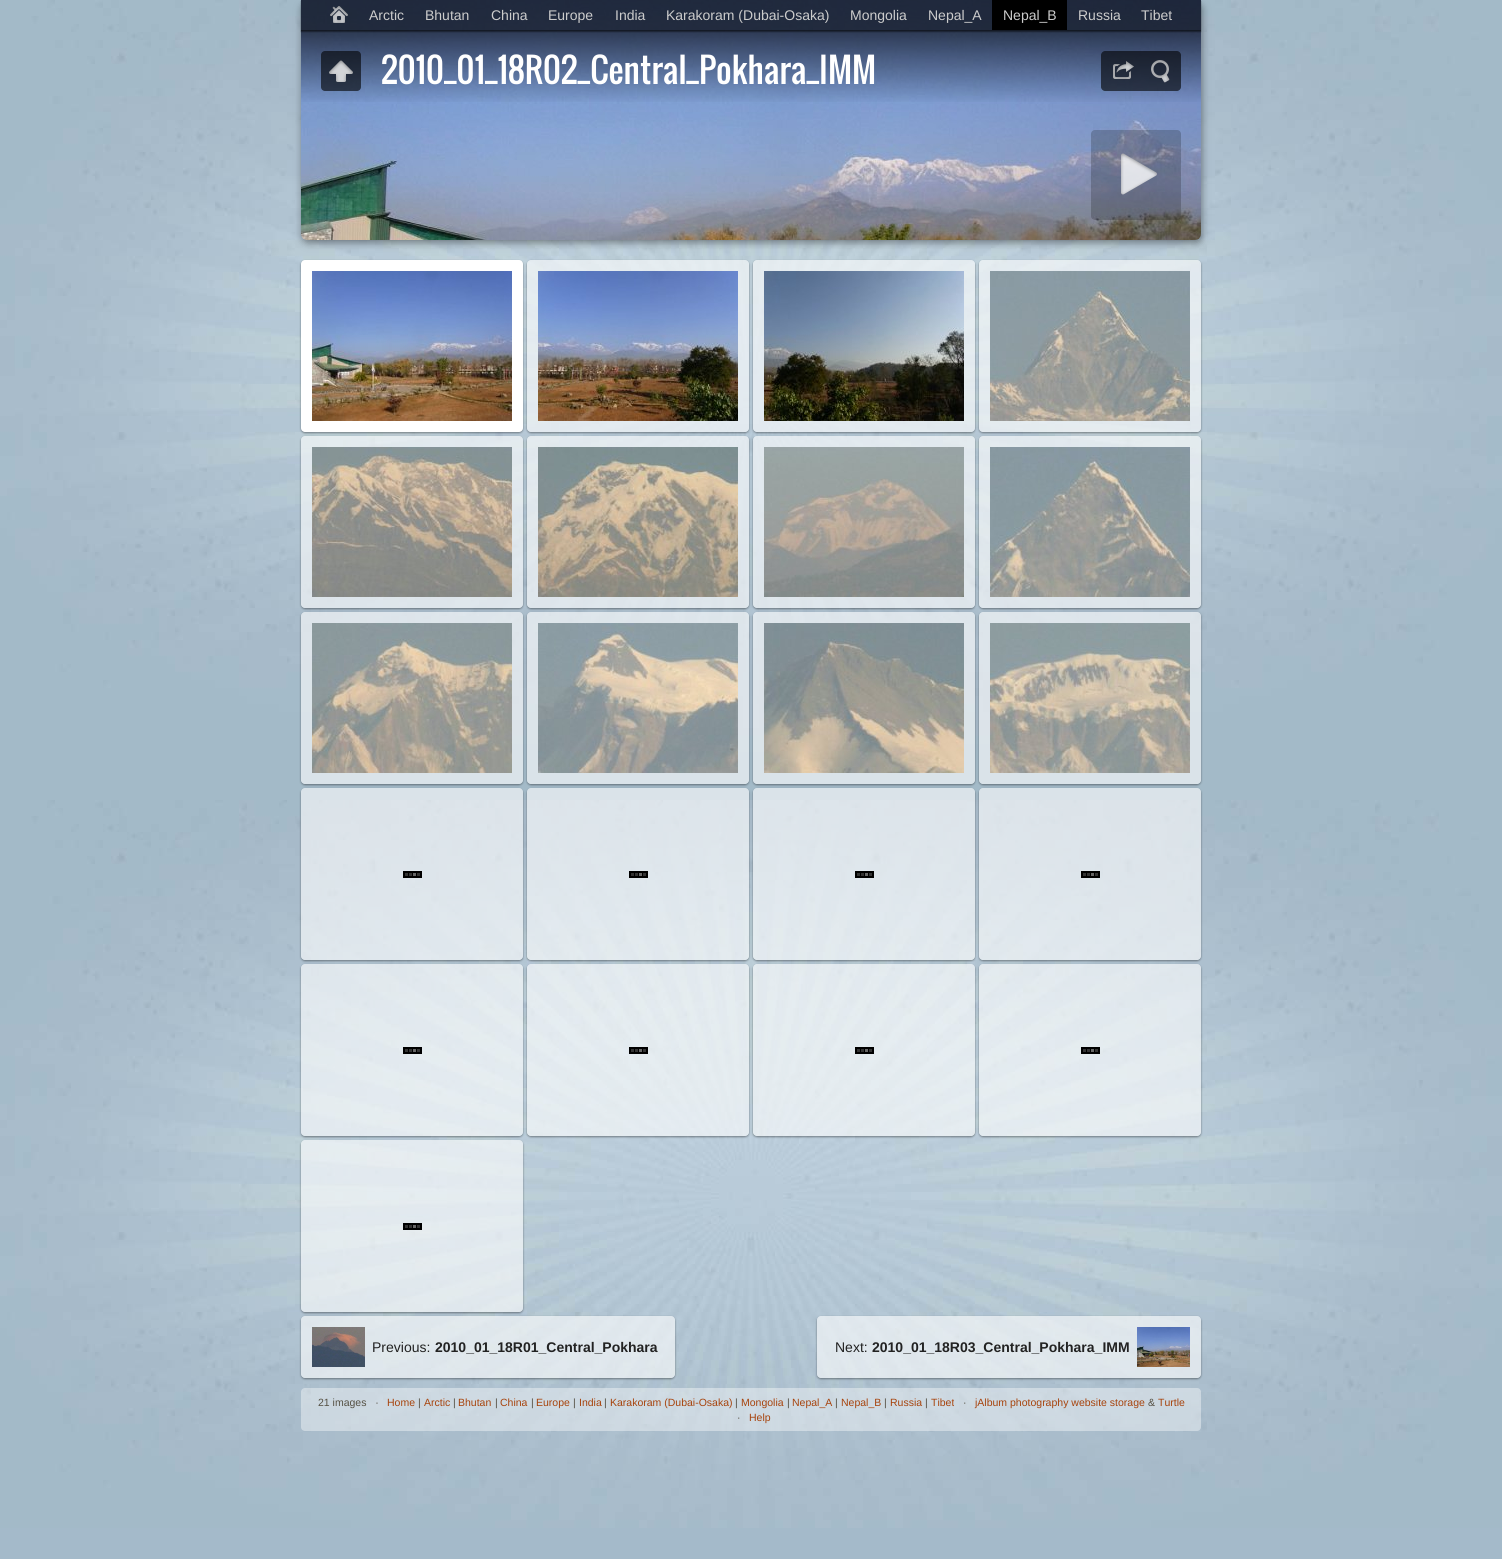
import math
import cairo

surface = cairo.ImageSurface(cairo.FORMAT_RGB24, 1502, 1559)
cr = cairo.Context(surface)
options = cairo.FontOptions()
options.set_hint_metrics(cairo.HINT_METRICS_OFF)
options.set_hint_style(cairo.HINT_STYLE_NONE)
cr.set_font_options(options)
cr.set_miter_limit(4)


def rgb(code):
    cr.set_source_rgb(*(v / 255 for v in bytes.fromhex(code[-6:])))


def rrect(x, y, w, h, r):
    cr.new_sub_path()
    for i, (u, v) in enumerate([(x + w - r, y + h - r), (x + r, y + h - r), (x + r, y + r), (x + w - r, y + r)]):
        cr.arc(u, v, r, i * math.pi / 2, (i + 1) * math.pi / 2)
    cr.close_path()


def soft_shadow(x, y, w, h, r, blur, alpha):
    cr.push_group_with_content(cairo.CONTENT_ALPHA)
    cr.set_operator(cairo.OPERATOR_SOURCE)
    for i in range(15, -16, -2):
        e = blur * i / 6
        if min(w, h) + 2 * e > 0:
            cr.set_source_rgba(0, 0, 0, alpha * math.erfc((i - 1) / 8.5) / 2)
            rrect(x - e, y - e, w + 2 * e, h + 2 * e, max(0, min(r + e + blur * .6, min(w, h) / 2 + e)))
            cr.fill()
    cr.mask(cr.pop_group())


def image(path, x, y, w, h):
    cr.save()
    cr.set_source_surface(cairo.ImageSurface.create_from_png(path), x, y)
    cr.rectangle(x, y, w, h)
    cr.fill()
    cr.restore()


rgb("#a4baca")
cr.paint()
image("img/1.png", 0, 0, 1502, 1528)
rgb("#000000")
soft_shadow(302, 3, 900, 240, 6, 4, 0.4)
image("img/2.png", 301, 0, 900, 240)
cr.save()
cr.set_fill_rule(cairo.FILL_RULE_EVEN_ODD)
cr.new_path()
cr.move_to(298, 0)
cr.line_to(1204, 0)
cr.line_to(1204, 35)
cr.line_to(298, 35)
cr.close_path()
cr.move_to(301, 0)
cr.line_to(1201, 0)
cr.line_to(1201, 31)
cr.line_to(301, 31)
cr.close_path()
cr.clip()
soft_shadow(301, 1, 900, 31, 0, 0.5, 0.4)
cr.restore()
cr.set_source_rgba(0, 0, 0, 0.7)
cr.rectangle(301, 0, 900, 31)
cr.fill()
cr.set_source_rgba(0, 0, 0, 0.4)
cr.rectangle(301, 30, 900, 1)
cr.fill()
image("img/3.png", 330, 6, 18, 17)
rgb("#000000")
cr.rectangle(992, 0, 75, 30)
cr.fill()
gradient = cairo.LinearGradient(751, 31, 751, 105)
gradient.add_color_stop_rgba(0, 0, 0, 0, 0.6)
gradient.add_color_stop_rgba(1, 0, 0, 0, 0)
cr.set_source(gradient)
cr.rectangle(301, 31, 900, 71)
cr.fill()
cr.set_source_rgba(0, 0, 0, 0.6)
rrect(321, 51, 40, 40, 4)
cr.fill()
image("img/4.png", 329, 60, 24, 22)
cr.new_path()
cr.move_to(1105, 51)
cr.line_to(1141, 51)
cr.line_to(1141, 91)
cr.line_to(1105, 91)
cr.curve_to(1103, 91, 1101, 89, 1101, 87)
cr.line_to(1101, 55)
cr.curve_to(1101, 53, 1103, 51, 1105, 51)
cr.close_path()
cr.fill()
image("img/5.png", 1113, 61, 21, 18)
cr.new_path()
cr.move_to(1141, 51)
cr.line_to(1177, 51)
cr.curve_to(1179, 51, 1181, 53, 1181, 55)
cr.line_to(1181, 87)
cr.curve_to(1181, 89, 1179, 91, 1177, 91)
cr.line_to(1141, 91)
cr.close_path()
cr.fill()
image("img/6.png", 1151, 60, 19, 23)
cr.set_source_rgba(0, 0, 0, 0.2)
rrect(1091, 130, 90, 90, 4)
cr.fill()
image("img/7.png", 1121, 153, 36, 42)
rgb("#000000")
soft_shadow(301, 261, 222, 172, 4, 1, 0.4)
rgb("#ffffff")
rrect(301, 260, 222, 172, 4)
cr.fill()
image("img/8.png", 312, 271, 200, 150)
cr.save()
cr.set_fill_rule(cairo.FILL_RULE_EVEN_ODD)
cr.new_path()
cr.move_to(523, 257)
cr.line_to(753, 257)
cr.line_to(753, 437)
cr.line_to(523, 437)
cr.close_path()
cr.move_to(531, 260)
cr.line_to(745, 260)
cr.curve_to(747, 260, 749, 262, 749, 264)
cr.line_to(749, 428)
cr.curve_to(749, 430, 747, 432, 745, 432)
cr.line_to(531, 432)
cr.curve_to(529, 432, 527, 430, 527, 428)
cr.line_to(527, 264)
cr.curve_to(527, 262, 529, 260, 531, 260)
cr.close_path()
cr.clip()
rgb("#000000")
soft_shadow(527, 261, 222, 172, 4, 1, 0.4)
cr.restore()
cr.set_source_rgba(1, 1, 1, 0.6)
rrect(527, 260, 222, 172, 4)
cr.fill()
image("img/9.png", 538, 271, 200, 150)
cr.save()
cr.set_fill_rule(cairo.FILL_RULE_EVEN_ODD)
cr.new_path()
cr.move_to(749, 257)
cr.line_to(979, 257)
cr.line_to(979, 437)
cr.line_to(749, 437)
cr.close_path()
cr.move_to(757, 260)
cr.line_to(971, 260)
cr.curve_to(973, 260, 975, 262, 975, 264)
cr.line_to(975, 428)
cr.curve_to(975, 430, 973, 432, 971, 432)
cr.line_to(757, 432)
cr.curve_to(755, 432, 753, 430, 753, 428)
cr.line_to(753, 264)
cr.curve_to(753, 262, 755, 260, 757, 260)
cr.close_path()
cr.clip()
rgb("#000000")
soft_shadow(753, 261, 222, 172, 4, 1, 0.4)
cr.restore()
rrect(753, 260, 222, 172, 4)
cr.fill()
image("img/10.png", 764, 271, 200, 150)
cr.save()
cr.set_fill_rule(cairo.FILL_RULE_EVEN_ODD)
cr.new_path()
cr.move_to(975, 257)
cr.line_to(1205, 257)
cr.line_to(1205, 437)
cr.line_to(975, 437)
cr.close_path()
cr.move_to(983, 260)
cr.line_to(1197, 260)
cr.curve_to(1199, 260, 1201, 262, 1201, 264)
cr.line_to(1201, 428)
cr.curve_to(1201, 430, 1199, 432, 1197, 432)
cr.line_to(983, 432)
cr.curve_to(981, 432, 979, 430, 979, 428)
cr.line_to(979, 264)
cr.curve_to(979, 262, 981, 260, 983, 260)
cr.close_path()
cr.clip()
rgb("#000000")
soft_shadow(979, 261, 222, 172, 4, 1, 0.4)
cr.restore()
rrect(979, 260, 222, 172, 4)
cr.fill()
image("img/11.png", 990, 271, 200, 150)
cr.save()
cr.set_fill_rule(cairo.FILL_RULE_EVEN_ODD)
cr.new_path()
cr.move_to(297, 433)
cr.line_to(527, 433)
cr.line_to(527, 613)
cr.line_to(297, 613)
cr.close_path()
cr.move_to(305, 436)
cr.line_to(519, 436)
cr.curve_to(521, 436, 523, 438, 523, 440)
cr.line_to(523, 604)
cr.curve_to(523, 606, 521, 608, 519, 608)
cr.line_to(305, 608)
cr.curve_to(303, 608, 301, 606, 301, 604)
cr.line_to(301, 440)
cr.curve_to(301, 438, 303, 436, 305, 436)
cr.close_path()
cr.clip()
rgb("#000000")
soft_shadow(301, 437, 222, 172, 4, 1, 0.4)
cr.restore()
rrect(301, 436, 222, 172, 4)
cr.fill()
image("img/12.png", 312, 447, 200, 150)
cr.save()
cr.set_fill_rule(cairo.FILL_RULE_EVEN_ODD)
cr.new_path()
cr.move_to(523, 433)
cr.line_to(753, 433)
cr.line_to(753, 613)
cr.line_to(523, 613)
cr.close_path()
cr.move_to(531, 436)
cr.line_to(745, 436)
cr.curve_to(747, 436, 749, 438, 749, 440)
cr.line_to(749, 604)
cr.curve_to(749, 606, 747, 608, 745, 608)
cr.line_to(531, 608)
cr.curve_to(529, 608, 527, 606, 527, 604)
cr.line_to(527, 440)
cr.curve_to(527, 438, 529, 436, 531, 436)
cr.close_path()
cr.clip()
rgb("#000000")
soft_shadow(527, 437, 222, 172, 4, 1, 0.4)
cr.restore()
rrect(527, 436, 222, 172, 4)
cr.fill()
image("img/13.png", 538, 447, 200, 150)
cr.save()
cr.set_fill_rule(cairo.FILL_RULE_EVEN_ODD)
cr.new_path()
cr.move_to(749, 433)
cr.line_to(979, 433)
cr.line_to(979, 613)
cr.line_to(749, 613)
cr.close_path()
cr.move_to(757, 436)
cr.line_to(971, 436)
cr.curve_to(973, 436, 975, 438, 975, 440)
cr.line_to(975, 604)
cr.curve_to(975, 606, 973, 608, 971, 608)
cr.line_to(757, 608)
cr.curve_to(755, 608, 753, 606, 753, 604)
cr.line_to(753, 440)
cr.curve_to(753, 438, 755, 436, 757, 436)
cr.close_path()
cr.clip()
rgb("#000000")
soft_shadow(753, 437, 222, 172, 4, 1, 0.4)
cr.restore()
rrect(753, 436, 222, 172, 4)
cr.fill()
image("img/14.png", 764, 447, 200, 150)
cr.save()
cr.set_fill_rule(cairo.FILL_RULE_EVEN_ODD)
cr.new_path()
cr.move_to(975, 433)
cr.line_to(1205, 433)
cr.line_to(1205, 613)
cr.line_to(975, 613)
cr.close_path()
cr.move_to(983, 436)
cr.line_to(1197, 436)
cr.curve_to(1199, 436, 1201, 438, 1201, 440)
cr.line_to(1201, 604)
cr.curve_to(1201, 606, 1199, 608, 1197, 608)
cr.line_to(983, 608)
cr.curve_to(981, 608, 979, 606, 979, 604)
cr.line_to(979, 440)
cr.curve_to(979, 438, 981, 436, 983, 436)
cr.close_path()
cr.clip()
rgb("#000000")
soft_shadow(979, 437, 222, 172, 4, 1, 0.4)
cr.restore()
rrect(979, 436, 222, 172, 4)
cr.fill()
image("img/15.png", 990, 447, 200, 150)
cr.save()
cr.set_fill_rule(cairo.FILL_RULE_EVEN_ODD)
cr.new_path()
cr.move_to(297, 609)
cr.line_to(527, 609)
cr.line_to(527, 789)
cr.line_to(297, 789)
cr.close_path()
cr.move_to(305, 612)
cr.line_to(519, 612)
cr.curve_to(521, 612, 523, 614, 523, 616)
cr.line_to(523, 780)
cr.curve_to(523, 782, 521, 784, 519, 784)
cr.line_to(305, 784)
cr.curve_to(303, 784, 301, 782, 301, 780)
cr.line_to(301, 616)
cr.curve_to(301, 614, 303, 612, 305, 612)
cr.close_path()
cr.clip()
rgb("#000000")
soft_shadow(301, 613, 222, 172, 4, 1, 0.4)
cr.restore()
rrect(301, 612, 222, 172, 4)
cr.fill()
image("img/16.png", 312, 623, 200, 150)
cr.save()
cr.set_fill_rule(cairo.FILL_RULE_EVEN_ODD)
cr.new_path()
cr.move_to(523, 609)
cr.line_to(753, 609)
cr.line_to(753, 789)
cr.line_to(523, 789)
cr.close_path()
cr.move_to(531, 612)
cr.line_to(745, 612)
cr.curve_to(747, 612, 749, 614, 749, 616)
cr.line_to(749, 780)
cr.curve_to(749, 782, 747, 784, 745, 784)
cr.line_to(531, 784)
cr.curve_to(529, 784, 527, 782, 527, 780)
cr.line_to(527, 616)
cr.curve_to(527, 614, 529, 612, 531, 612)
cr.close_path()
cr.clip()
rgb("#000000")
soft_shadow(527, 613, 222, 172, 4, 1, 0.4)
cr.restore()
rrect(527, 612, 222, 172, 4)
cr.fill()
image("img/17.png", 538, 623, 200, 150)
cr.save()
cr.set_fill_rule(cairo.FILL_RULE_EVEN_ODD)
cr.new_path()
cr.move_to(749, 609)
cr.line_to(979, 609)
cr.line_to(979, 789)
cr.line_to(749, 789)
cr.close_path()
cr.move_to(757, 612)
cr.line_to(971, 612)
cr.curve_to(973, 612, 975, 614, 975, 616)
cr.line_to(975, 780)
cr.curve_to(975, 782, 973, 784, 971, 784)
cr.line_to(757, 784)
cr.curve_to(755, 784, 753, 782, 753, 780)
cr.line_to(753, 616)
cr.curve_to(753, 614, 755, 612, 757, 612)
cr.close_path()
cr.clip()
rgb("#000000")
soft_shadow(753, 613, 222, 172, 4, 1, 0.4)
cr.restore()
rrect(753, 612, 222, 172, 4)
cr.fill()
image("img/18.png", 764, 623, 200, 150)
cr.save()
cr.set_fill_rule(cairo.FILL_RULE_EVEN_ODD)
cr.new_path()
cr.move_to(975, 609)
cr.line_to(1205, 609)
cr.line_to(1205, 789)
cr.line_to(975, 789)
cr.close_path()
cr.move_to(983, 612)
cr.line_to(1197, 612)
cr.curve_to(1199, 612, 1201, 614, 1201, 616)
cr.line_to(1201, 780)
cr.curve_to(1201, 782, 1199, 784, 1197, 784)
cr.line_to(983, 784)
cr.curve_to(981, 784, 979, 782, 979, 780)
cr.line_to(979, 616)
cr.curve_to(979, 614, 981, 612, 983, 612)
cr.close_path()
cr.clip()
rgb("#000000")
soft_shadow(979, 613, 222, 172, 4, 1, 0.4)
cr.restore()
rrect(979, 612, 222, 172, 4)
cr.fill()
image("img/19.png", 990, 623, 200, 150)
cr.save()
cr.set_fill_rule(cairo.FILL_RULE_EVEN_ODD)
cr.new_path()
cr.move_to(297, 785)
cr.line_to(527, 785)
cr.line_to(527, 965)
cr.line_to(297, 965)
cr.close_path()
cr.move_to(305, 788)
cr.line_to(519, 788)
cr.curve_to(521, 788, 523, 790, 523, 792)
cr.line_to(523, 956)
cr.curve_to(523, 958, 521, 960, 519, 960)
cr.line_to(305, 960)
cr.curve_to(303, 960, 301, 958, 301, 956)
cr.line_to(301, 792)
cr.curve_to(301, 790, 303, 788, 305, 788)
cr.close_path()
cr.clip()
rgb("#000000")
soft_shadow(301, 789, 222, 172, 4, 1, 0.4)
cr.restore()
rrect(301, 788, 222, 172, 4)
cr.fill()
image("img/20.png", 403, 871, 19, 7)
cr.save()
cr.set_fill_rule(cairo.FILL_RULE_EVEN_ODD)
cr.new_path()
cr.move_to(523, 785)
cr.line_to(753, 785)
cr.line_to(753, 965)
cr.line_to(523, 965)
cr.close_path()
cr.move_to(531, 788)
cr.line_to(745, 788)
cr.curve_to(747, 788, 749, 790, 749, 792)
cr.line_to(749, 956)
cr.curve_to(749, 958, 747, 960, 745, 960)
cr.line_to(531, 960)
cr.curve_to(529, 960, 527, 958, 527, 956)
cr.line_to(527, 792)
cr.curve_to(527, 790, 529, 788, 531, 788)
cr.close_path()
cr.clip()
rgb("#000000")
soft_shadow(527, 789, 222, 172, 4, 1, 0.4)
cr.restore()
rrect(527, 788, 222, 172, 4)
cr.fill()
image("img/20.png", 629, 871, 19, 7)
cr.save()
cr.set_fill_rule(cairo.FILL_RULE_EVEN_ODD)
cr.new_path()
cr.move_to(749, 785)
cr.line_to(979, 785)
cr.line_to(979, 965)
cr.line_to(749, 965)
cr.close_path()
cr.move_to(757, 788)
cr.line_to(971, 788)
cr.curve_to(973, 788, 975, 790, 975, 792)
cr.line_to(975, 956)
cr.curve_to(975, 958, 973, 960, 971, 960)
cr.line_to(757, 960)
cr.curve_to(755, 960, 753, 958, 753, 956)
cr.line_to(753, 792)
cr.curve_to(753, 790, 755, 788, 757, 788)
cr.close_path()
cr.clip()
rgb("#000000")
soft_shadow(753, 789, 222, 172, 4, 1, 0.4)
cr.restore()
rrect(753, 788, 222, 172, 4)
cr.fill()
image("img/20.png", 855, 871, 19, 7)
cr.save()
cr.set_fill_rule(cairo.FILL_RULE_EVEN_ODD)
cr.new_path()
cr.move_to(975, 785)
cr.line_to(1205, 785)
cr.line_to(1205, 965)
cr.line_to(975, 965)
cr.close_path()
cr.move_to(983, 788)
cr.line_to(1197, 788)
cr.curve_to(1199, 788, 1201, 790, 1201, 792)
cr.line_to(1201, 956)
cr.curve_to(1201, 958, 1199, 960, 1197, 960)
cr.line_to(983, 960)
cr.curve_to(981, 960, 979, 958, 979, 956)
cr.line_to(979, 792)
cr.curve_to(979, 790, 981, 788, 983, 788)
cr.close_path()
cr.clip()
rgb("#000000")
soft_shadow(979, 789, 222, 172, 4, 1, 0.4)
cr.restore()
rrect(979, 788, 222, 172, 4)
cr.fill()
image("img/20.png", 1081, 871, 19, 7)
cr.save()
cr.set_fill_rule(cairo.FILL_RULE_EVEN_ODD)
cr.new_path()
cr.move_to(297, 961)
cr.line_to(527, 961)
cr.line_to(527, 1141)
cr.line_to(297, 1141)
cr.close_path()
cr.move_to(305, 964)
cr.line_to(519, 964)
cr.curve_to(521, 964, 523, 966, 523, 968)
cr.line_to(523, 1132)
cr.curve_to(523, 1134, 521, 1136, 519, 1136)
cr.line_to(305, 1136)
cr.curve_to(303, 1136, 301, 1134, 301, 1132)
cr.line_to(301, 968)
cr.curve_to(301, 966, 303, 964, 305, 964)
cr.close_path()
cr.clip()
rgb("#000000")
soft_shadow(301, 965, 222, 172, 4, 1, 0.4)
cr.restore()
rrect(301, 964, 222, 172, 4)
cr.fill()
image("img/20.png", 403, 1047, 19, 7)
cr.save()
cr.set_fill_rule(cairo.FILL_RULE_EVEN_ODD)
cr.new_path()
cr.move_to(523, 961)
cr.line_to(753, 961)
cr.line_to(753, 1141)
cr.line_to(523, 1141)
cr.close_path()
cr.move_to(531, 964)
cr.line_to(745, 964)
cr.curve_to(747, 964, 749, 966, 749, 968)
cr.line_to(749, 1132)
cr.curve_to(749, 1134, 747, 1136, 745, 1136)
cr.line_to(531, 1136)
cr.curve_to(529, 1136, 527, 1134, 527, 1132)
cr.line_to(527, 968)
cr.curve_to(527, 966, 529, 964, 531, 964)
cr.close_path()
cr.clip()
rgb("#000000")
soft_shadow(527, 965, 222, 172, 4, 1, 0.4)
cr.restore()
rrect(527, 964, 222, 172, 4)
cr.fill()
image("img/20.png", 629, 1047, 19, 7)
cr.save()
cr.set_fill_rule(cairo.FILL_RULE_EVEN_ODD)
cr.new_path()
cr.move_to(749, 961)
cr.line_to(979, 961)
cr.line_to(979, 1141)
cr.line_to(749, 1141)
cr.close_path()
cr.move_to(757, 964)
cr.line_to(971, 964)
cr.curve_to(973, 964, 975, 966, 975, 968)
cr.line_to(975, 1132)
cr.curve_to(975, 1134, 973, 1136, 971, 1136)
cr.line_to(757, 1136)
cr.curve_to(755, 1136, 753, 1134, 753, 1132)
cr.line_to(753, 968)
cr.curve_to(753, 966, 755, 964, 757, 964)
cr.close_path()
cr.clip()
rgb("#000000")
soft_shadow(753, 965, 222, 172, 4, 1, 0.4)
cr.restore()
rrect(753, 964, 222, 172, 4)
cr.fill()
image("img/20.png", 855, 1047, 19, 7)
cr.save()
cr.set_fill_rule(cairo.FILL_RULE_EVEN_ODD)
cr.new_path()
cr.move_to(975, 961)
cr.line_to(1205, 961)
cr.line_to(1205, 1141)
cr.line_to(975, 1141)
cr.close_path()
cr.move_to(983, 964)
cr.line_to(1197, 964)
cr.curve_to(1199, 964, 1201, 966, 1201, 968)
cr.line_to(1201, 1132)
cr.curve_to(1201, 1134, 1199, 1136, 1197, 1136)
cr.line_to(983, 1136)
cr.curve_to(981, 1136, 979, 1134, 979, 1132)
cr.line_to(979, 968)
cr.curve_to(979, 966, 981, 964, 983, 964)
cr.close_path()
cr.clip()
rgb("#000000")
soft_shadow(979, 965, 222, 172, 4, 1, 0.4)
cr.restore()
rrect(979, 964, 222, 172, 4)
cr.fill()
image("img/20.png", 1081, 1047, 19, 7)
cr.save()
cr.set_fill_rule(cairo.FILL_RULE_EVEN_ODD)
cr.new_path()
cr.move_to(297, 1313)
cr.line_to(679, 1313)
cr.line_to(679, 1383)
cr.line_to(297, 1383)
cr.close_path()
cr.move_to(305, 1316)
cr.line_to(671, 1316)
cr.curve_to(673, 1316, 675, 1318, 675, 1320)
cr.line_to(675, 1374)
cr.curve_to(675, 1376, 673, 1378, 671, 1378)
cr.line_to(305, 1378)
cr.curve_to(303, 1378, 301, 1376, 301, 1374)
cr.line_to(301, 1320)
cr.curve_to(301, 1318, 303, 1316, 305, 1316)
cr.close_path()
cr.clip()
rgb("#000000")
soft_shadow(301, 1317, 374, 62, 4, 1, 0.4)
cr.restore()
rrect(301, 1316, 374, 62, 4)
cr.fill()
cr.save()
cr.set_fill_rule(cairo.FILL_RULE_EVEN_ODD)
cr.new_path()
cr.move_to(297, 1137)
cr.line_to(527, 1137)
cr.line_to(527, 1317)
cr.line_to(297, 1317)
cr.close_path()
cr.move_to(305, 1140)
cr.line_to(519, 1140)
cr.curve_to(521, 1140, 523, 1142, 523, 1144)
cr.line_to(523, 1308)
cr.curve_to(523, 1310, 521, 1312, 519, 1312)
cr.line_to(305, 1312)
cr.curve_to(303, 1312, 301, 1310, 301, 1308)
cr.line_to(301, 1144)
cr.curve_to(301, 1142, 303, 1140, 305, 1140)
cr.close_path()
cr.clip()
rgb("#000000")
soft_shadow(301, 1141, 222, 172, 4, 1, 0.4)
cr.restore()
rrect(301, 1140, 222, 172, 4)
cr.fill()
image("img/20.png", 403, 1223, 19, 7)
image("img/21.png", 312, 1327, 53, 40)
cr.save()
cr.set_fill_rule(cairo.FILL_RULE_EVEN_ODD)
cr.new_path()
cr.move_to(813, 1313)
cr.line_to(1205, 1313)
cr.line_to(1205, 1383)
cr.line_to(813, 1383)
cr.close_path()
cr.move_to(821, 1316)
cr.line_to(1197, 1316)
cr.curve_to(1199, 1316, 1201, 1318, 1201, 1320)
cr.line_to(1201, 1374)
cr.curve_to(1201, 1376, 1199, 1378, 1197, 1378)
cr.line_to(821, 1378)
cr.curve_to(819, 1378, 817, 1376, 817, 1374)
cr.line_to(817, 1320)
cr.curve_to(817, 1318, 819, 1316, 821, 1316)
cr.close_path()
cr.clip()
rgb("#000000")
soft_shadow(817, 1317, 384, 62, 4, 1, 0.4)
cr.restore()
rrect(817, 1316, 384, 62, 4)
cr.fill()
image("img/22.png", 1137, 1327, 53, 40)
cr.set_source_rgba(1, 1, 1, 0.4)
rrect(301, 1388, 900, 43, 4)
cr.fill()
cr.select_font_face("Liberation Sans")
cr.set_font_size(14)
rgb("#cccccc")
for x, y, s in [
    (369, 20, "Arctic"),
    (425, 20, "Bhutan"),
    (491, 20, "China"),
    (548, 20, "Europe"),
    (615, 20, "India"),
    (666, 20, "Karakoram (Dubai-Osaka)"),
    (850, 20, "Mongolia"),
    (928, 20, "Nepal_A"),
    (1003, 20, "Nepal_B"),
    (1078, 20, "Russia"),
    (1141, 20, "Tibet"),
]:
    cr.move_to(x, y)
    cr.show_text(s)
cr.select_font_face("Oswald")
cr.set_font_size(33.6)
rgb("#ffffff")
cr.move_to(381, 84)
cr.show_text("2010_01_18R02_Central_Pokhara_IMM")
cr.select_font_face("Liberation Sans")
cr.set_font_size(14)
rgb("#222222")
cr.move_to(372, 1352)
cr.show_text("Previous:")
cr.select_font_face("Liberation Sans", cairo.FONT_SLANT_NORMAL, cairo.FONT_WEIGHT_BOLD)
cr.move_to(435, 1352)
cr.show_text("2010_01_18R01_Central_Pokhara")
cr.select_font_face("Liberation Sans")
cr.move_to(835, 1352)
cr.show_text("Next:")
cr.select_font_face("Liberation Sans", cairo.FONT_SLANT_NORMAL, cairo.FONT_WEIGHT_BOLD)
cr.move_to(872, 1352)
cr.show_text("2010_01_18R03_Central_Pokhara_IMM")
cr.select_font_face("Liberation Sans")
cr.set_font_size(10.5)
rgb("#555043")
cr.move_to(318, 1406)
cr.show_text("21 images   ·")
rgb("#a7430c")
cr.move_to(387, 1406)
cr.show_text("Home")
rgb("#555043")
cr.move_to(418, 1406)
cr.show_text("|")
rgb("#a7430c")
cr.move_to(424, 1406)
cr.show_text("Arctic")
rgb("#555043")
cr.move_to(453, 1406)
cr.show_text("|")
rgb("#a7430c")
cr.move_to(458, 1406)
cr.show_text("Bhutan")
rgb("#555043")
cr.move_to(495, 1406)
cr.show_text("|")
rgb("#a7430c")
cr.move_to(500, 1406)
cr.show_text("China")
rgb("#555043")
cr.move_to(531, 1406)
cr.show_text("|")
rgb("#a7430c")
cr.move_to(536, 1406)
cr.show_text("Europe")
rgb("#555043")
cr.move_to(573, 1406)
cr.show_text("|")
rgb("#a7430c")
cr.move_to(579, 1406)
cr.show_text("India")
rgb("#555043")
cr.move_to(604, 1406)
cr.show_text("|")
rgb("#a7430c")
cr.move_to(610, 1406)
cr.show_text("Karakoram (Dubai-Osaka)")
rgb("#555043")
cr.move_to(735, 1406)
cr.show_text("|")
rgb("#a7430c")
cr.move_to(741, 1406)
cr.show_text("Mongolia")
rgb("#555043")
cr.move_to(787, 1406)
cr.show_text("|")
rgb("#a7430c")
cr.move_to(792, 1406)
cr.show_text("Nepal_A")
rgb("#555043")
cr.move_to(835, 1406)
cr.show_text("|")
rgb("#a7430c")
cr.move_to(841, 1406)
cr.show_text("Nepal_B")
rgb("#555043")
cr.move_to(884, 1406)
cr.show_text("|")
rgb("#a7430c")
cr.move_to(890, 1406)
cr.show_text("Russia")
rgb("#555043")
cr.move_to(925, 1406)
cr.show_text("|")
rgb("#a7430c")
cr.move_to(931, 1406)
cr.show_text("Tibet")
rgb("#555043")
cr.move_to(963, 1406)
cr.show_text("·")
rgb("#a7430c")
cr.move_to(975, 1406)
cr.show_text("jAlbum photography website storage")
rgb("#555043")
cr.move_to(1148, 1406)
cr.show_text("&")
rgb("#a7430c")
cr.move_to(1158, 1406)
cr.show_text("Turtle")
rgb("#555043")
cr.move_to(737, 1421)
cr.show_text("·")
rgb("#a7430c")
cr.move_to(749, 1421)
cr.show_text("Help")
surface.write_to_png("page.png")
